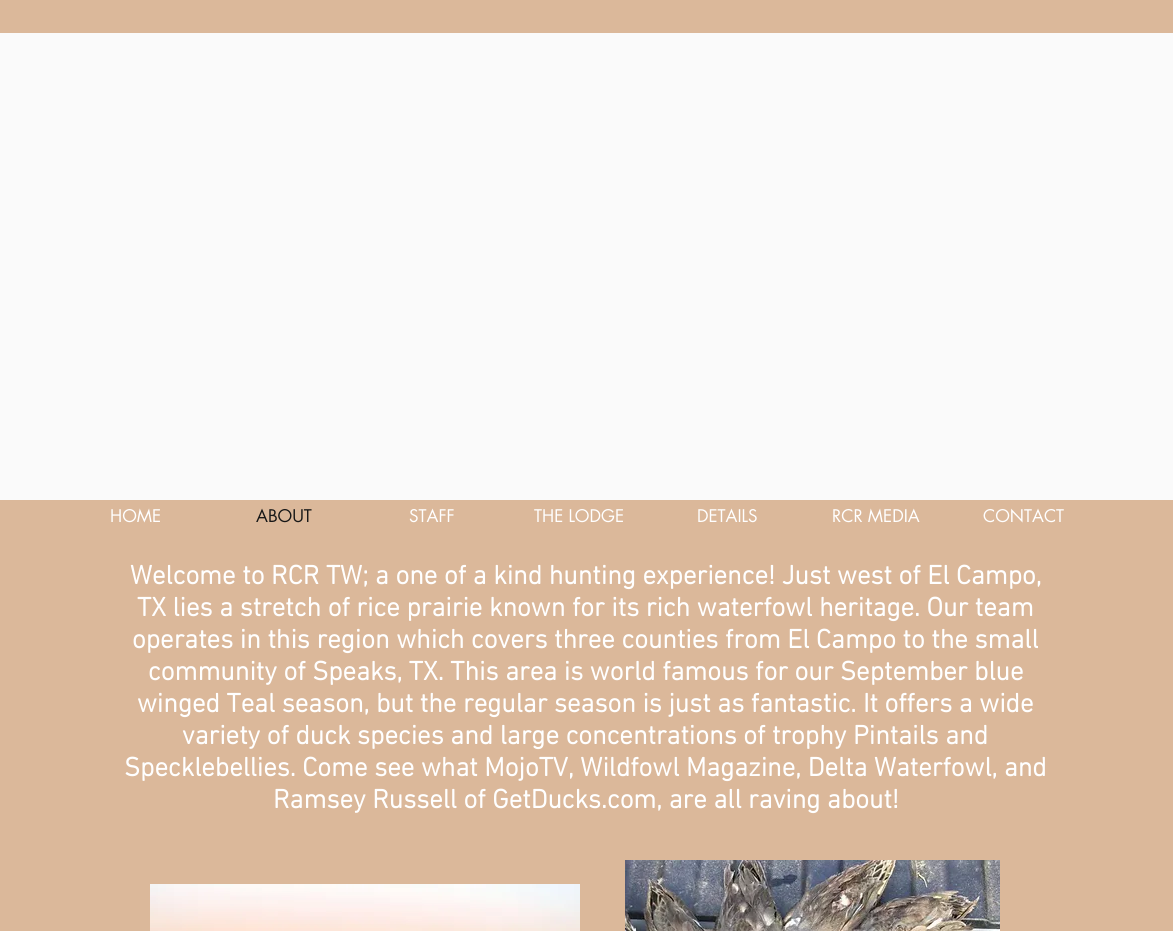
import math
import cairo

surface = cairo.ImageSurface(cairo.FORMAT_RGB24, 1173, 931)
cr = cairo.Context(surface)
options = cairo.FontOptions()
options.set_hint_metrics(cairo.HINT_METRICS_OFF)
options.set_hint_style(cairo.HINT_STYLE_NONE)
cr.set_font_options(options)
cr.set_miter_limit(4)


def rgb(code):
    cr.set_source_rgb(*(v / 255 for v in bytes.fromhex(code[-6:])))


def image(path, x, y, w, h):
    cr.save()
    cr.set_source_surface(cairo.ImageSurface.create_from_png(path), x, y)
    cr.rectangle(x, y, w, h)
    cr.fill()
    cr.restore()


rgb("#dbb89a")
cr.paint()
rgb("#fafafa")
cr.rectangle(0, 33, 1173, 467)
cr.fill()
image("img/1.png", 150, 884, 430, 47)
image("img/2.png", 625, 860, 375, 71)
cr.select_font_face("futura")
cr.set_font_size(17)
rgb("#ffffff")
cr.move_to(110, 522)
cr.show_text("HOME")
rgb("#171717")
cr.move_to(256, 522)
cr.show_text("ABOUT")
rgb("#ffffff")
for x, y, s in [
    (409, 522, "STAFF"),
    (534, 522, "THE LODGE"),
    (697, 522, "DETAILS"),
    (832, 522, "RCR MEDIA"),
    (983, 522, "CONTACT"),
]:
    cr.move_to(x, y)
    cr.show_text(s)
cr.select_font_face("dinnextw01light", cairo.FONT_SLANT_NORMAL, cairo.FONT_WEIGHT_BOLD)
cr.set_font_size(27)
for x, y, s in [
    (130, 584, "Welcome to RCR TW; a one of a kind hunting experience! Just west of El Campo,"),
    (137, 616, "TX lies a stretch of rice prairie known for its rich waterfowl heritage. Our team"),
    (132, 648, "operates in this region which covers three counties from El Campo to the small"),
    (148, 680, "community of Speaks, TX. This area is world famous for our September blue"),
    (137, 712, "winged Teal season, but the regular season is just as fantastic. It offers a wide"),
    (182, 744, "variety of duck species and large concentrations of trophy Pintails and"),
    (124, 776, "Specklebellies. Come see what MojoTV, Wildfowl Magazine, Delta Waterfowl, and"),
    (273, 808, "Ramsey Russell of GetDucks.com, are all raving about!"),
]:
    cr.move_to(x, y)
    cr.show_text(s)
surface.write_to_png("page.png")
